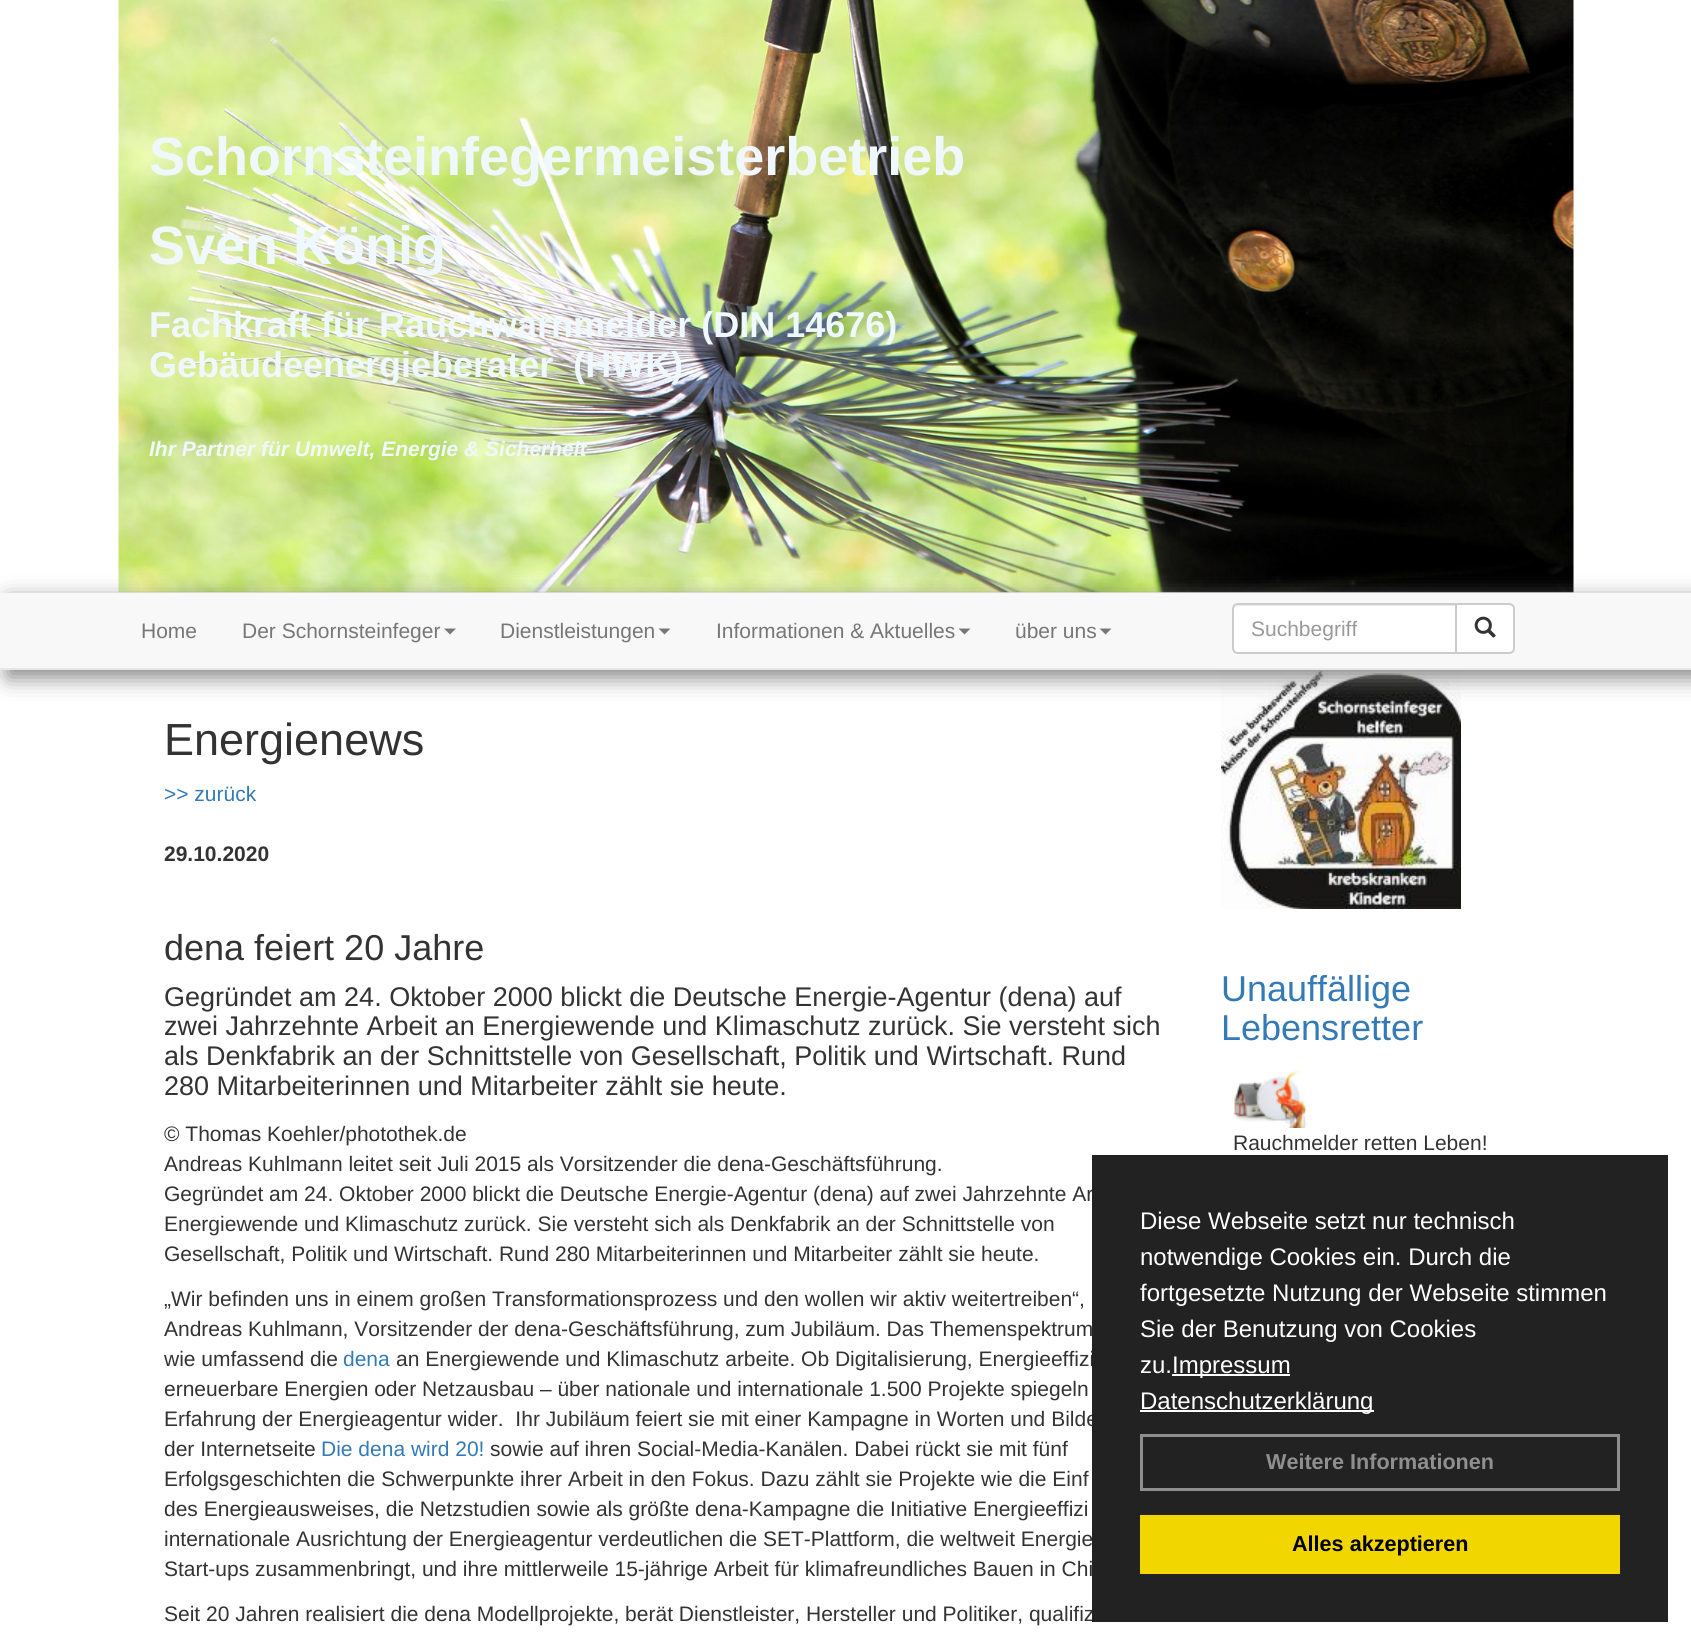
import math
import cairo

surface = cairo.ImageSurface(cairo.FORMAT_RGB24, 1691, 1645)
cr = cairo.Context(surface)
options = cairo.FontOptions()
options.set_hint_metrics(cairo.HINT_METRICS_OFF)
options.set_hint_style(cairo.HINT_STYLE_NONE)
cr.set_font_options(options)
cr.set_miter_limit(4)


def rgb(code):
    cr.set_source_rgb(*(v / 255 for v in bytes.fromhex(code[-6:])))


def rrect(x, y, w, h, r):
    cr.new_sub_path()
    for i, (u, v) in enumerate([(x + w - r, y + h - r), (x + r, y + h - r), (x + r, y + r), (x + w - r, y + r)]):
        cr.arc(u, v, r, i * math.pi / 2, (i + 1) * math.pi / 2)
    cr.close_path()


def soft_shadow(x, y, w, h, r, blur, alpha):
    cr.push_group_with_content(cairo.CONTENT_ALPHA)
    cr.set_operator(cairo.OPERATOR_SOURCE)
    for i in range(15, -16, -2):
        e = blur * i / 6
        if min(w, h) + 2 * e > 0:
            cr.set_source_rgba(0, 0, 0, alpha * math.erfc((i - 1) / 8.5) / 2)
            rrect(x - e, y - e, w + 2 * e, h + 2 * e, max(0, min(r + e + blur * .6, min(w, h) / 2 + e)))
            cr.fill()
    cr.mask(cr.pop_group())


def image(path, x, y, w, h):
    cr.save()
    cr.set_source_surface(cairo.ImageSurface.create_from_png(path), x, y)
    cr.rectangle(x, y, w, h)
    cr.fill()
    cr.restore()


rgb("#ffffff")
cr.paint()
image("img/1.png", 118, 0, 1456, 593)
image("img/3.png", 1221, 670, 240, 239)
rgb("#808080")
soft_shadow(8, 600, 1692, 77, 0, 11, 1)
rgb("#f8f8f8")
cr.rectangle(0, 593, 1691, 75)
cr.fill()
rgb("#e7e7e7")
cr.rectangle(0, 668, 1691, 2)
cr.fill()
rgb("#777777")
cr.new_path()
cr.move_to(444, 628.5)
cr.line_to(456, 628.5)
cr.line_to(450, 634.5)
cr.close_path()
cr.fill()
cr.new_path()
cr.move_to(658.5, 628.5)
cr.line_to(670.5, 628.5)
cr.line_to(664.5, 634.5)
cr.close_path()
cr.fill()
cr.new_path()
cr.move_to(958.5, 628.5)
cr.line_to(970.5, 628.5)
cr.line_to(964.5, 634.5)
cr.close_path()
cr.fill()
cr.new_path()
cr.move_to(1099.5, 628.5)
cr.line_to(1111.5, 628.5)
cr.line_to(1105.5, 634.5)
cr.close_path()
cr.fill()
rgb("#ffffff")
cr.new_path()
cr.move_to(1238, 603)
cr.line_to(1457, 603)
cr.line_to(1457, 654)
cr.line_to(1238, 654)
cr.curve_to(1234.5, 654, 1232, 651.5, 1232, 648)
cr.line_to(1232, 609)
cr.curve_to(1232, 605.5, 1234.5, 603, 1238, 603)
cr.close_path()
cr.fill()
rgb("#ececec")
cr.new_path()
cr.move_to(1238, 606)
cr.line_to(1455, 606)
cr.line_to(1455, 605)
cr.line_to(1238, 605)
cr.curve_to(1235, 605, 1233, 607, 1233, 610)
cr.curve_to(1233, 608, 1235, 606, 1238, 606)
cr.close_path()
cr.fill()
cr.new_path()
cr.move_to(1238, 604)
cr.line_to(1456, 604)
cr.line_to(1456, 653)
cr.line_to(1238, 653)
cr.curve_to(1235, 653, 1233, 651, 1233, 648)
cr.line_to(1233, 609)
cr.curve_to(1233, 606, 1235, 604, 1238, 604)
cr.close_path()
rgb("#cccccc")
cr.stroke()
rgb("#ffffff")
cr.new_path()
cr.move_to(1456, 604)
cr.line_to(1509, 604)
cr.curve_to(1512, 604, 1514, 606, 1514, 609)
cr.line_to(1514, 648)
cr.curve_to(1514, 651, 1512, 653, 1509, 653)
cr.line_to(1456, 653)
cr.close_path()
cr.fill_preserve()
rgb("#cccccc")
cr.stroke()
image("img/2.png", 1474, 616, 22, 22)
image("img/4.png", 1233, 1069, 74, 59)
cr.select_font_face("Liberation Sans", cairo.FONT_SLANT_NORMAL, cairo.FONT_WEIGHT_BOLD)
cr.set_font_size(54)
rgb("#f0f8ff")
cr.move_to(149, 175)
cr.show_text("Schornsteinfegermeisterbetrieb")
cr.move_to(149, 264)
cr.show_text("Sven König")
cr.set_font_size(36)
cr.move_to(149, 337)
cr.show_text("Fachkraft für Rauchwarnmelder (DIN 14676)")
cr.move_to(149, 377)
cr.show_text("Gebäudeenergieberater  (HWK)")
cr.select_font_face("Liberation Sans", cairo.FONT_SLANT_ITALIC, cairo.FONT_WEIGHT_BOLD)
cr.set_font_size(21)
cr.move_to(149, 456)
cr.show_text("Ihr Partner für Umwelt, Energie & Sicherheit")
cr.select_font_face("Liberation Sans")
rgb("#777777")
for x, y, s in [
    (141, 638, "Home"),
    (242, 638, "Der Schornsteinfeger"),
    (500, 638, "Dienstleistungen"),
    (716, 638, "Informationen & Aktuelles"),
    (1015, 638, "über uns"),
]:
    cr.move_to(x, y)
    cr.show_text(s)
rgb("#999999")
cr.move_to(1251, 636)
cr.show_text("Suchbegriff")
cr.set_font_size(45)
rgb("#333333")
cr.move_to(164, 755)
cr.show_text("Energienews")
cr.set_font_size(21)
rgb("#337ab7")
cr.move_to(164, 801)
cr.show_text(">> zurück")
cr.select_font_face("Liberation Sans", cairo.FONT_SLANT_NORMAL, cairo.FONT_WEIGHT_BOLD)
rgb("#333333")
cr.move_to(164, 861)
cr.show_text("29.10.2020")
cr.select_font_face("Liberation Sans")
cr.set_font_size(36)
cr.move_to(164, 960)
cr.show_text("dena feiert 20 Jahre")
cr.set_font_size(27)
for x, y, s in [
    (164, 1006, "Gegründet am 24. Oktober 2000 blickt die Deutsche Energie-Agentur (dena) auf"),
    (164, 1035, "zwei Jahrzehnte Arbeit an Energiewende und Klimaschutz zurück. Sie versteht sich"),
    (164, 1065, "als Denkfabrik an der Schnittstelle von Gesellschaft, Politik und Wirtschaft. Rund"),
    (164, 1095, "280 Mitarbeiterinnen und Mitarbeiter zählt sie heute."),
]:
    cr.move_to(x, y)
    cr.show_text(s)
cr.set_font_size(21)
for x, y, s in [
    (164, 1141, "© Thomas Koehler/photothek.de"),
    (164, 1171, "Andreas Kuhlmann leitet seit Juli 2015 als Vorsitzender die dena-Geschäftsführung."),
    (164, 1201, "Gegründet am 24. Oktober 2000 blickt die Deutsche Energie-Agentur (dena) auf zwei Jahrzehnte Ar"),
    (164, 1231, "Energiewende und Klimaschutz zurück. Sie versteht sich als Denkfabrik an der Schnittstelle von"),
    (164, 1261, "Gesellschaft, Politik und Wirtschaft. Rund 280 Mitarbeiterinnen und Mitarbeiter zählt sie heute."),
    (164, 1306, "„Wir befinden uns in einem großen Transformationsprozess und den wollen wir aktiv weitertreiben“,"),
    (164, 1336, "Andreas Kuhlmann, Vorsitzender der dena-Geschäftsführung, zum Jubiläum. Das Themenspektrum"),
    (164, 1366, "wie umfassend die"),
]:
    cr.move_to(x, y)
    cr.show_text(s)
rgb("#337ab7")
cr.move_to(343, 1366)
cr.show_text("dena")
rgb("#333333")
for x, y, s in [
    (396, 1366, "an Energiewende und Klimaschutz arbeite. Ob Digitalisierung, Energieeffizi"),
    (164, 1396, "erneuerbare Energien oder Netzausbau – über nationale und internationale 1.500 Projekte spiegeln"),
    (164, 1426, "Erfahrung der Energieagentur wider.  Ihr Jubiläum feiert sie mit einer Kampagne in Worten und Bilde"),
    (164, 1456, "der Internetseite"),
]:
    cr.move_to(x, y)
    cr.show_text(s)
rgb("#337ab7")
cr.move_to(321, 1456)
cr.show_text("Die dena wird 20!")
rgb("#333333")
for x, y, s in [
    (490, 1456, "sowie auf ihren Social-Media-Kanälen. Dabei rückt sie mit fünf"),
    (164, 1486, "Erfolgsgeschichten die Schwerpunkte ihrer Arbeit in den Fokus. Dazu zählt sie Projekte wie die Einf"),
    (164, 1516, "des Energieausweises, die Netzstudien sowie als größte dena-Kampagne die Initiative Energieeffizi"),
    (164, 1546, "internationale Ausrichtung der Energieagentur verdeutlichen die SET-Plattform, die weltweit Energie"),
    (164, 1576, "Start-ups zusammenbringt, und ihre mittlerweile 15-jährige Arbeit für klimafreundliches Bauen in Chi"),
    (164, 1621, "Seit 20 Jahren realisiert die dena Modellprojekte, berät Dienstleister, Hersteller und Politiker, qualifiz"),
]:
    cr.move_to(x, y)
    cr.show_text(s)
cr.set_font_size(36)
rgb("#337ab7")
cr.move_to(1221, 1001)
cr.show_text("Unauffällige")
cr.move_to(1221, 1040)
cr.show_text("Lebensretter")
cr.set_font_size(21)
rgb("#333333")
cr.move_to(1233, 1150)
cr.show_text("Rauchmelder retten Leben!")
rgb("#222222")
cr.rectangle(1092, 1155, 576, 467)
cr.fill()
cr.set_font_size(24)
rgb("#ffffff")
for x, y, s in [
    (1140, 1229, "Diese Webseite setzt nur technisch"),
    (1140, 1265, "notwendige Cookies ein. Durch die"),
    (1140, 1301, "fortgesetzte Nutzung der Webseite stimmen"),
    (1140, 1337, "Sie der Benutzung von Cookies"),
    (1140, 1373, "zu."),
]:
    cr.move_to(x, y)
    cr.show_text(s)
cr.rectangle(1172, 1374, 118, 2)
cr.fill()
cr.move_to(1172, 1373)
cr.show_text("Impressum")
cr.rectangle(1140, 1410, 234, 2)
cr.fill()
cr.move_to(1140, 1409)
cr.show_text("Datenschutzerklärung")
cr.rectangle(1141.5, 1435.5, 477, 54)
rgb("#8f8f8f")
cr.set_line_width(3)
cr.stroke()
cr.select_font_face("Liberation Sans", cairo.FONT_SLANT_NORMAL, cairo.FONT_WEIGHT_BOLD)
cr.set_font_size(21.6)
cr.move_to(1266, 1469)
cr.show_text("Weitere Informationen")
rgb("#f1d600")
cr.rectangle(1140, 1515, 480, 59)
cr.fill()
rgb("#000000")
cr.move_to(1292, 1551)
cr.show_text("Alles akzeptieren")
surface.write_to_png("page.png")
